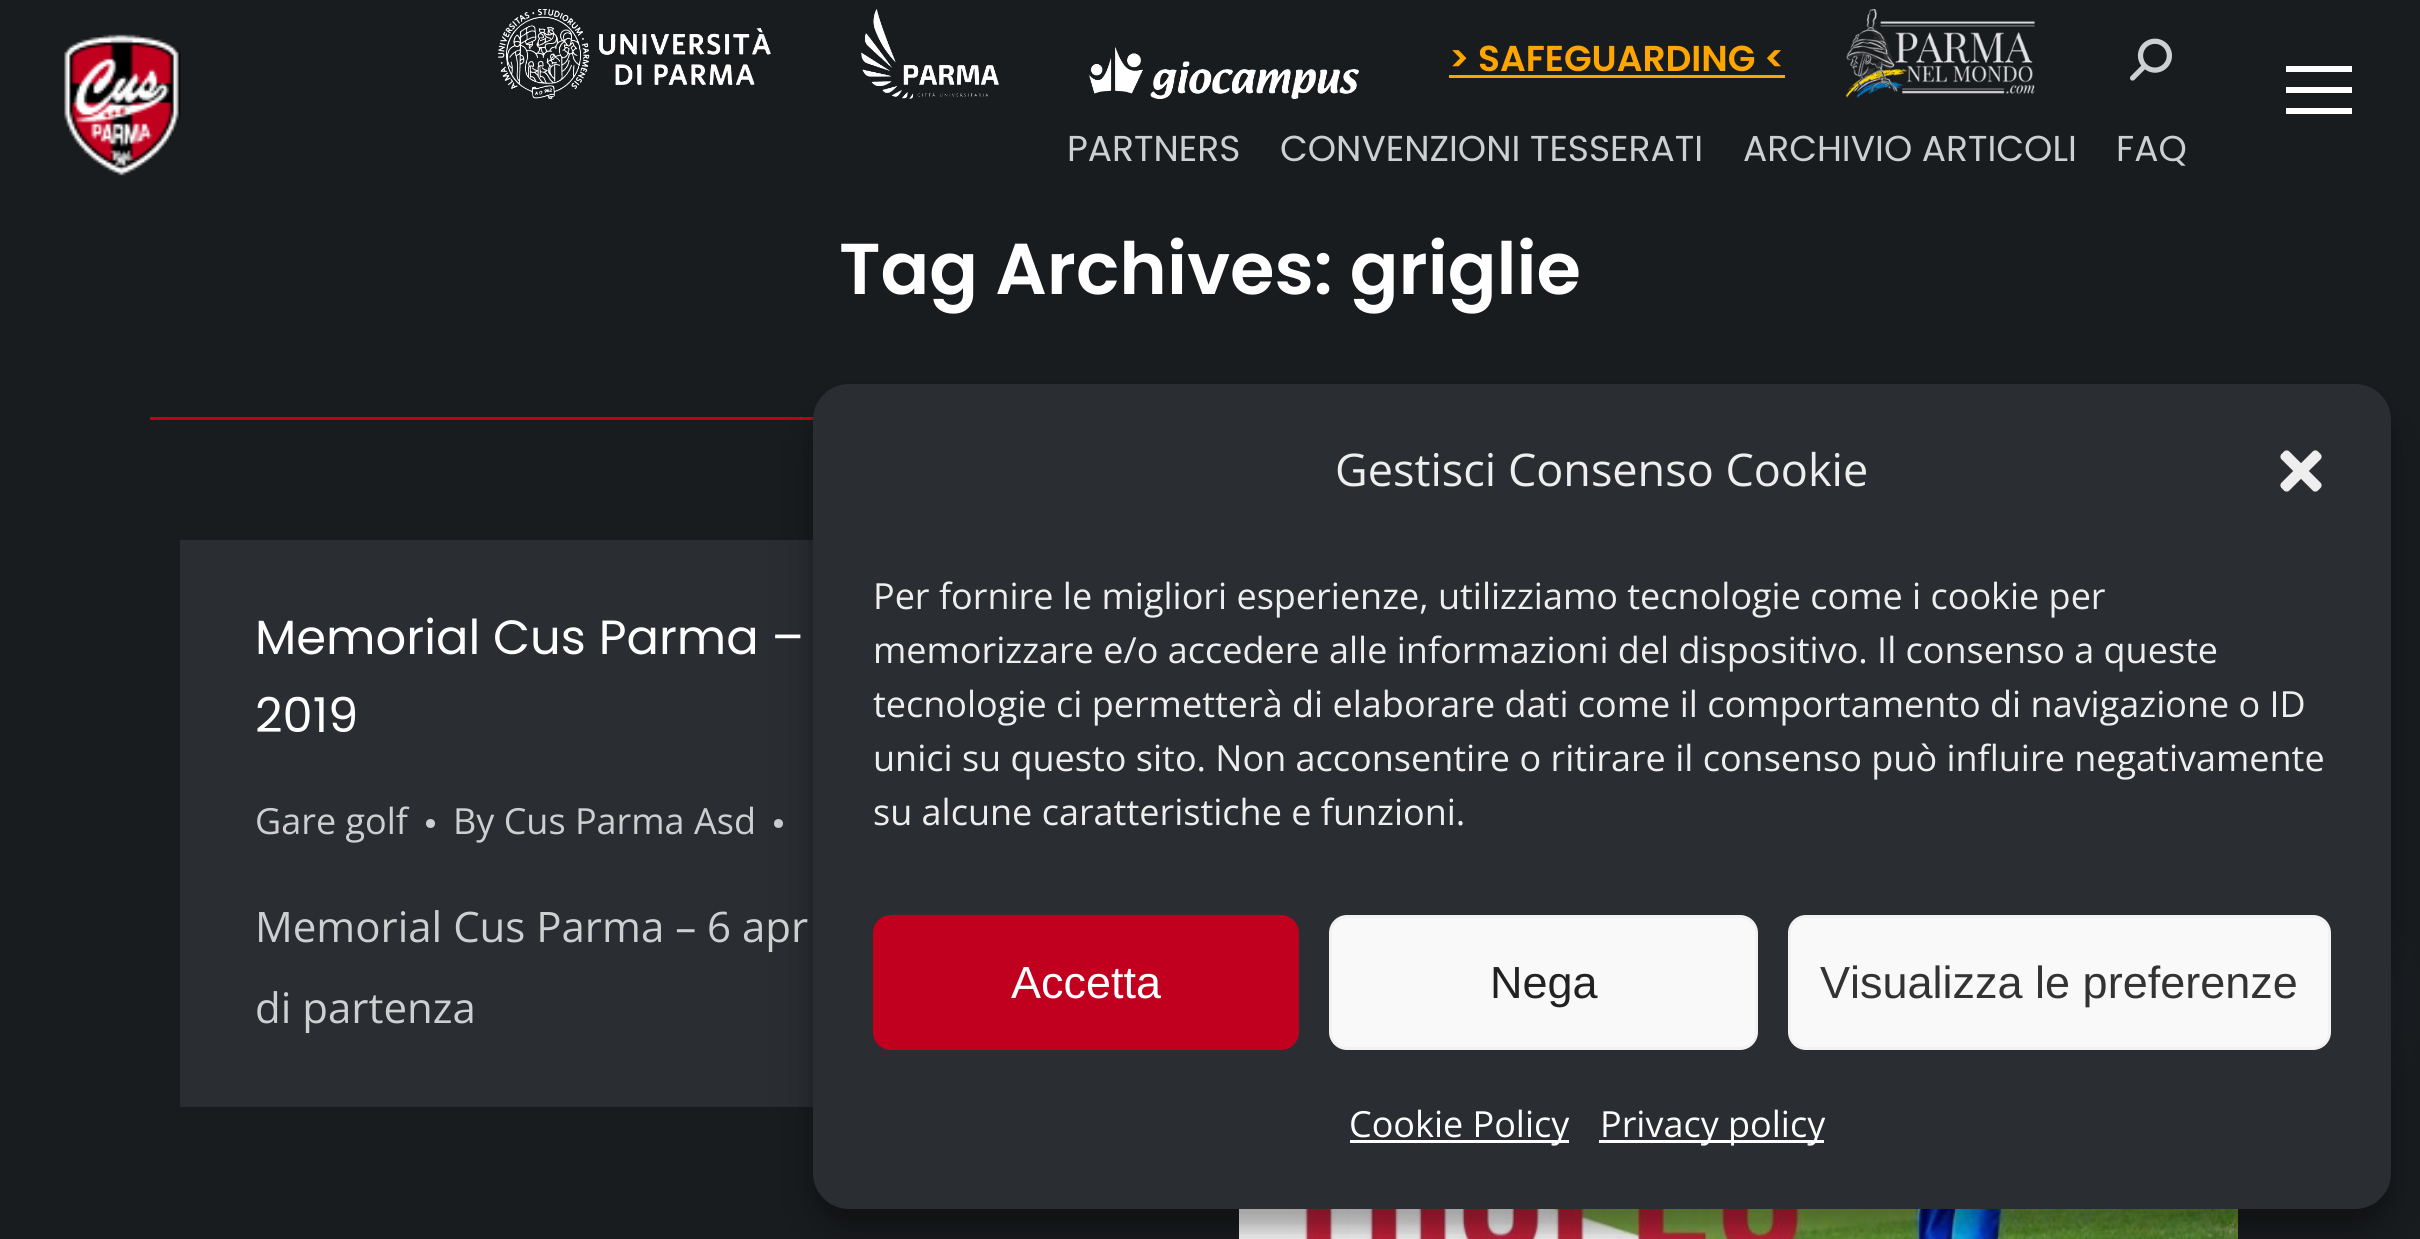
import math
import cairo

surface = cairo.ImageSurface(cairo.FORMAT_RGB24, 2420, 1239)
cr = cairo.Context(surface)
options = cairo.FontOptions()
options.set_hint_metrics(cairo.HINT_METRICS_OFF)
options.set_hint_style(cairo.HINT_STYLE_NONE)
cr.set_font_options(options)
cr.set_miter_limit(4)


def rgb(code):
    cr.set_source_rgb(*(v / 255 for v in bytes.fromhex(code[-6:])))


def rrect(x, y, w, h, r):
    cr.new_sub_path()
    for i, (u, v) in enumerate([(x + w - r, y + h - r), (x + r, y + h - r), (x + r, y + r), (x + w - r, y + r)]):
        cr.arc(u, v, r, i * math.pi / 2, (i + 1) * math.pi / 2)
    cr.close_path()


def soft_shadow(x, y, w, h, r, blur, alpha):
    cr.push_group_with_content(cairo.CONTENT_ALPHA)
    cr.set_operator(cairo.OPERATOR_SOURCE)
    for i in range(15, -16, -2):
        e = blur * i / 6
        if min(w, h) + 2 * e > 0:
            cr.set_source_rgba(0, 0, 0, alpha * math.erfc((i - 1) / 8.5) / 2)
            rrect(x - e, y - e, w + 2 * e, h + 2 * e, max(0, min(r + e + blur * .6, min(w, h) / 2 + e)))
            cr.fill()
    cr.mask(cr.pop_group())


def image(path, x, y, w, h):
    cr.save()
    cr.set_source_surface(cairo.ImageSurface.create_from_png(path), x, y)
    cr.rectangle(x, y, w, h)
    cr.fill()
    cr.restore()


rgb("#191c1f")
cr.paint()
image("img/1.png", 64, 34, 117, 142)
image("img/2.png", 498, 9, 273, 90)
image("img/3.png", 861, 9, 138, 90)
image("img/4.png", 1089, 47, 270, 52)
rgb("#ffa500")
cr.rectangle(1449, 75, 336, 3)
cr.fill()
image("img/5.png", 1845, 9, 190, 89)
image("img/6.png", 2130, 38, 42, 43)
for x, y, w, h, color in [
    (2286, 66, 66, 6, "#ffffff"),
    (2286, 87, 66, 6, "#ffffff"),
    (2286, 108, 66, 6, "#ffffff"),
    (150, 417, 664, 3, "#c1001f"),
    (180, 540, 633, 567, "#2a2d32"),
]:
    rgb(color)
    cr.rectangle(x, y, w, h)
    cr.fill()
rgb("#cecfd0")
cr.arc(430.5, 823.5, 4.5, 0, 2 * math.pi)
cr.fill()
cr.arc(778.5, 823.5, 4.5, 0, 2 * math.pi)
cr.fill()
image("img/7.png", 1239, 1209, 999, 30)
rgb("#000000")
soft_shadow(813, 402, 1578, 825, 36, 9, 0.23)
soft_shadow(813, 414, 1578, 825, 36, 30, 0.19)
rgb("#49687e")
soft_shadow(2205, 924, 162, 162, 81, 36, 0.16)
rgb("#2a2d32")
rrect(813, 384, 1578, 825, 36)
cr.fill()
image("img/8.png", 2280, 450, 42, 42)
rgb("#c1001f")
rrect(874.5, 916.5, 423, 132, 16.5)
cr.fill_preserve()
cr.set_line_width(3)
cr.stroke()
rgb("#f9f9f9")
rrect(1330.5, 916.5, 426, 132, 16.5)
cr.fill_preserve()
rgb("#f2f2f2")
cr.stroke()
rgb("#f9f9f9")
rrect(1789.5, 916.5, 540, 132, 16.5)
cr.fill_preserve()
rgb("#f2f2f2")
cr.stroke()
rgb("#ffffff")
cr.rectangle(1350, 1140, 219, 3)
cr.fill()
cr.rectangle(1599, 1140, 225, 3)
cr.fill()
cr.select_font_face("Poppins SemiBold")
cr.set_font_size(36)
rgb("#ffa500")
cr.move_to(1449, 71)
cr.show_text("> SAFEGUARDING <")
cr.select_font_face("Poppins")
rgb("#cecfd0")
for x, y, s in [
    (1067, 161, "PARTNERS"),
    (1280, 161, "CONVENZIONI TESSERATI"),
    (1743, 161, "ARCHIVIO ARTICOLI"),
    (2116, 161, "FAQ"),
]:
    cr.move_to(x, y)
    cr.show_text(s)
cr.select_font_face("Poppins SemiBold")
cr.set_font_size(72)
rgb("#ffffff")
cr.move_to(839, 294)
cr.show_text("Tag Archives: griglie")
cr.select_font_face("Poppins")
cr.set_font_size(48)
cr.move_to(255, 654)
cr.show_text("Memorial Cus Parma –")
cr.move_to(255, 732)
cr.show_text("2019")
cr.select_font_face("Open Sans")
cr.set_font_size(36)
rgb("#cecfd0")
cr.move_to(255, 834)
cr.show_text("Gare golf")
cr.move_to(453, 834)
cr.show_text("By Cus Parma Asd")
cr.set_font_size(42)
cr.move_to(255, 942)
cr.show_text("Memorial Cus Parma – 6 apr")
cr.move_to(255, 1023)
cr.show_text("di partenza")
cr.set_font_size(45)
rgb("#eeeeee")
cr.move_to(1335, 486)
cr.show_text("Gestisci Consenso Cookie")
cr.set_font_size(36)
for x, y, s in [
    (873, 609, "Per fornire le migliori esperienze, utilizziamo tecnologie come i cookie per"),
    (873, 663, "memorizzare e/o accedere alle informazioni del dispositivo. Il consenso a queste"),
    (873, 717, "tecnologie ci permetterà di elaborare dati come il comportamento di navigazione o ID"),
    (873, 771, "unici su questo sito. Non acconsentire o ritirare il consenso può influire negativamente"),
    (873, 825, "su alcune caratteristiche e funzioni."),
]:
    cr.move_to(x, y)
    cr.show_text(s)
cr.select_font_face("Liberation Sans")
cr.set_font_size(45)
rgb("#ffffff")
cr.move_to(1011, 998)
cr.show_text("Accetta")
rgb("#222222")
cr.move_to(1490, 998)
cr.show_text("Nega")
rgb("#333333")
cr.move_to(1820, 998)
cr.show_text("Visualizza le preferenze")
cr.select_font_face("Open Sans")
cr.set_font_size(36)
rgb("#ffffff")
cr.move_to(1349, 1137)
cr.show_text("Cookie Policy")
cr.move_to(1600, 1137)
cr.show_text("Privacy policy")
surface.write_to_png("page.png")
